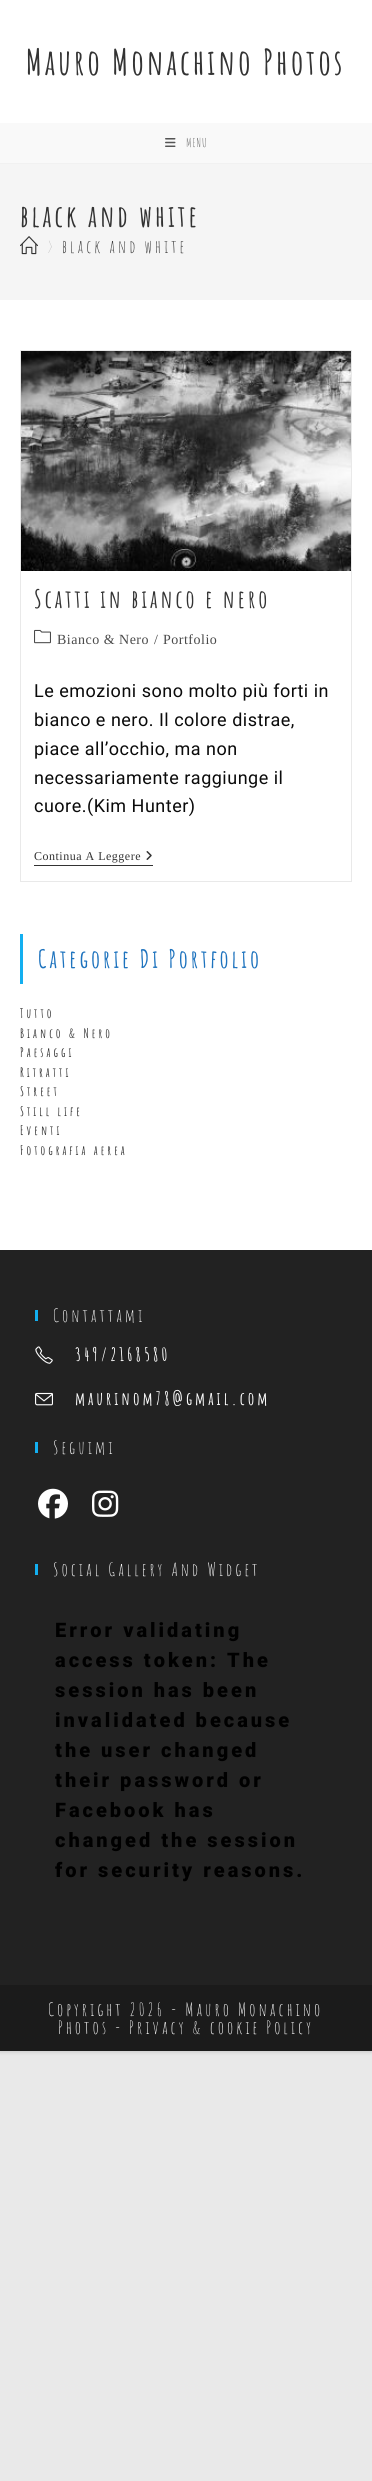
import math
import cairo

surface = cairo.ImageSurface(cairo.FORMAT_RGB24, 372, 2481)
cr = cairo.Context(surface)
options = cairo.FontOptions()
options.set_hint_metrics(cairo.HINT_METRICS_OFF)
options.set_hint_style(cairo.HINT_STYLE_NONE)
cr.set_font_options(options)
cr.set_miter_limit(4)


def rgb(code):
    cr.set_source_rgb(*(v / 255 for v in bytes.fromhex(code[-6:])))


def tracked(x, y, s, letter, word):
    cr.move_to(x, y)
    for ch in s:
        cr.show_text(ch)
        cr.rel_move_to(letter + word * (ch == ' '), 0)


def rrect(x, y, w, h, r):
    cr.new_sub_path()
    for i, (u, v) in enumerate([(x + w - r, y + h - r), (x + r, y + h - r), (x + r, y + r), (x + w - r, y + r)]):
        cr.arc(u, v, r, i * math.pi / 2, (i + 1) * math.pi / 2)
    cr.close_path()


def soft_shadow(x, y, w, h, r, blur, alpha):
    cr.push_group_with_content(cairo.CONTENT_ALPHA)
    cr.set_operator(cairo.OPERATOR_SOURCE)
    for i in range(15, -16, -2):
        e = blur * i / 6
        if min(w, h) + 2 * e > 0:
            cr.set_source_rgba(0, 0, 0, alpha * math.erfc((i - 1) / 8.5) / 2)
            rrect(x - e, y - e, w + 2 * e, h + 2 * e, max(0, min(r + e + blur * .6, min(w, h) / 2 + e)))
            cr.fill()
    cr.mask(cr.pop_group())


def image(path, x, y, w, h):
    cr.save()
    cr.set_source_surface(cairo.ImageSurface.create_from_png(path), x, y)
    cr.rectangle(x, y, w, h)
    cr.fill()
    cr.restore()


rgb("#e9e9e9")
cr.paint()
rgb("#000000")
soft_shadow(0, 1, 372, 2051, 0, 2, 0.15)
for x, y, w, h, color in [
    (0, 0, 372, 1250, "#ffffff"),
    (0, 163, 372, 1, "#f1f1f1"),
    (0, 123, 372, 40, "#f9f9f9"),
]:
    rgb(color)
    cr.rectangle(x, y, w, h)
    cr.fill()
image("img/1.png", 165, 138, 11, 9)
rgb("#f5f5f5")
cr.rectangle(0, 164, 372, 136)
cr.fill()
image("img/2.png", 20, 236, 18, 19)
cr.rectangle(20.5, 350.5, 331, 531)
rgb("#e9e9e9")
cr.set_line_width(1)
cr.stroke()
image("img/3.png", 21, 351, 330, 220)
image("img/4.png", 34, 629, 17, 15)
rgb("#333333")
cr.rectangle(34, 865, 119, 1)
cr.fill()
image("img/5.png", 146, 851, 6, 9)
for x, y, w, h, color in [
    (20, 934, 3, 50, "#13aff0"),
    (0, 1250, 372, 735, "#222222"),
    (35, 1310, 3, 11, "#13aff0"),
]:
    rgb(color)
    cr.rectangle(x, y, w, h)
    cr.fill()
image("img/6.png", 35, 1346, 18, 18)
image("img/7.png", 35, 1392, 18, 14)
cr.rectangle(35, 1442, 3, 11)
cr.fill()
image("img/8.png", 38, 1488, 30, 31)
image("img/9.png", 92, 1490, 27, 27)
cr.rectangle(35, 1564, 3, 11)
cr.fill()
rgb("#1b1b1b")
cr.rectangle(0, 1985, 372, 66)
cr.fill()
cr.select_font_face("Amatic SC", cairo.FONT_SLANT_NORMAL, cairo.FONT_WEIGHT_BOLD)
cr.set_font_size(35)
rgb("#333333")
tracked(26, 75, "Mauro Monachino Photos", 3, 0)
cr.select_font_face("Amatic SC")
cr.set_font_size(12)
rgb("#555555")
tracked(186, 147, "MENU", 1, 0)
cr.select_font_face("Amatic SC", cairo.FONT_SLANT_NORMAL, cairo.FONT_WEIGHT_BOLD)
cr.set_font_size(30)
rgb("#333333")
tracked(20, 227, "black and white", 3, 0)
cr.select_font_face("Amatic SC")
cr.set_font_size(18)
rgb("#c6c6c6")
tracked(47, 253, ">", 3, 0)
rgb("#333333")
tracked(62, 253, "black and white", 3, 0)
cr.select_font_face("Amatic SC", cairo.FONT_SLANT_NORMAL, cairo.FONT_WEIGHT_BOLD)
cr.set_font_size(25)
tracked(34, 608, "Scatti in bianco e nero", 3, 0)
cr.select_font_face("Liberation Serif")
cr.set_font_size(14)
rgb("#4a4a4a")
for x, y, s in [
    (57, 644, "Bianco & Nero"),
    (154, 644, "/"),
    (163, 644, "Portfolio"),
]:
    tracked(x, y, s, 0.5, 0)
cr.select_font_face("Roboto")
cr.set_font_size(18)
rgb("#0a0a0a")
for x, y, s in [
    (34, 697, "Le emozioni sono molto più forti in"),
    (34, 726, "bianco e nero. Il colore distrae,"),
    (34, 755, "piace all’occhio, ma non"),
    (34, 784, "necessariamente raggiunge il"),
    (34, 812, "cuore.(Kim Hunter)"),
]:
    tracked(x, y, s, 0.5, 0)
cr.select_font_face("Liberation Serif")
cr.set_font_size(12)
rgb("#333333")
tracked(34, 860, "Continua A Leggere", 0.5, 0)
cr.select_font_face("Amatic SC", cairo.FONT_SLANT_NORMAL, cairo.FONT_WEIGHT_BOLD)
cr.set_font_size(25)
rgb("#1e73be")
tracked(38, 968, "Categorie Di Portfolio", 3, 0)
cr.set_font_size(13)
rgb("#333333")
for x, y, s in [
    (20, 1018, "Tutto"),
    (20, 1038, "Bianco & Nero"),
    (20, 1057, "Paesaggi"),
    (20, 1077, "Ritratti"),
    (20, 1096, "Street"),
    (20, 1116, "Still life"),
    (20, 1135, "Eventi"),
    (20, 1155, "Fotografia aerea"),
]:
    tracked(x, y, s, 3, 0)
cr.select_font_face("Amatic SC")
cr.set_font_size(18)
rgb("#ffffff")
tracked(53, 1322, "Contattami", 3, 0)
cr.select_font_face("Amatic SC", cairo.FONT_SLANT_NORMAL, cairo.FONT_WEIGHT_BOLD)
tracked(75, 1361, "349/2168580", 3, 0)
tracked(75, 1405, "maurinom78@gmail.com", 3, 0)
cr.select_font_face("Amatic SC")
tracked(53, 1454, "Seguimi", 3, 0)
tracked(53, 1576, "Social Gallery And Widget", 3, 0)
cr.select_font_face("Roboto Black")
cr.set_font_size(20)
rgb("#000000")
for x, y, s in [
    (55, 1637, "Error validating"),
    (55, 1667, "access token: The"),
    (55, 1697, "session has been"),
    (55, 1727, "invalidated because"),
    (55, 1757, "the user changed"),
    (55, 1787, "their password or"),
    (55, 1817, "Facebook has"),
    (55, 1847, "changed the session"),
    (55, 1877, "for security reasons."),
]:
    tracked(x, y, s, 3, 0)
cr.select_font_face("Amatic SC")
cr.set_font_size(18)
rgb("#ffffff")
tracked(48, 2016, "Copyright 2026 - Mauro Monachino", 3, 0)
tracked(58, 2034, "Photos - Privacy & cookie Policy", 3, 0)
surface.write_to_png("page.png")
